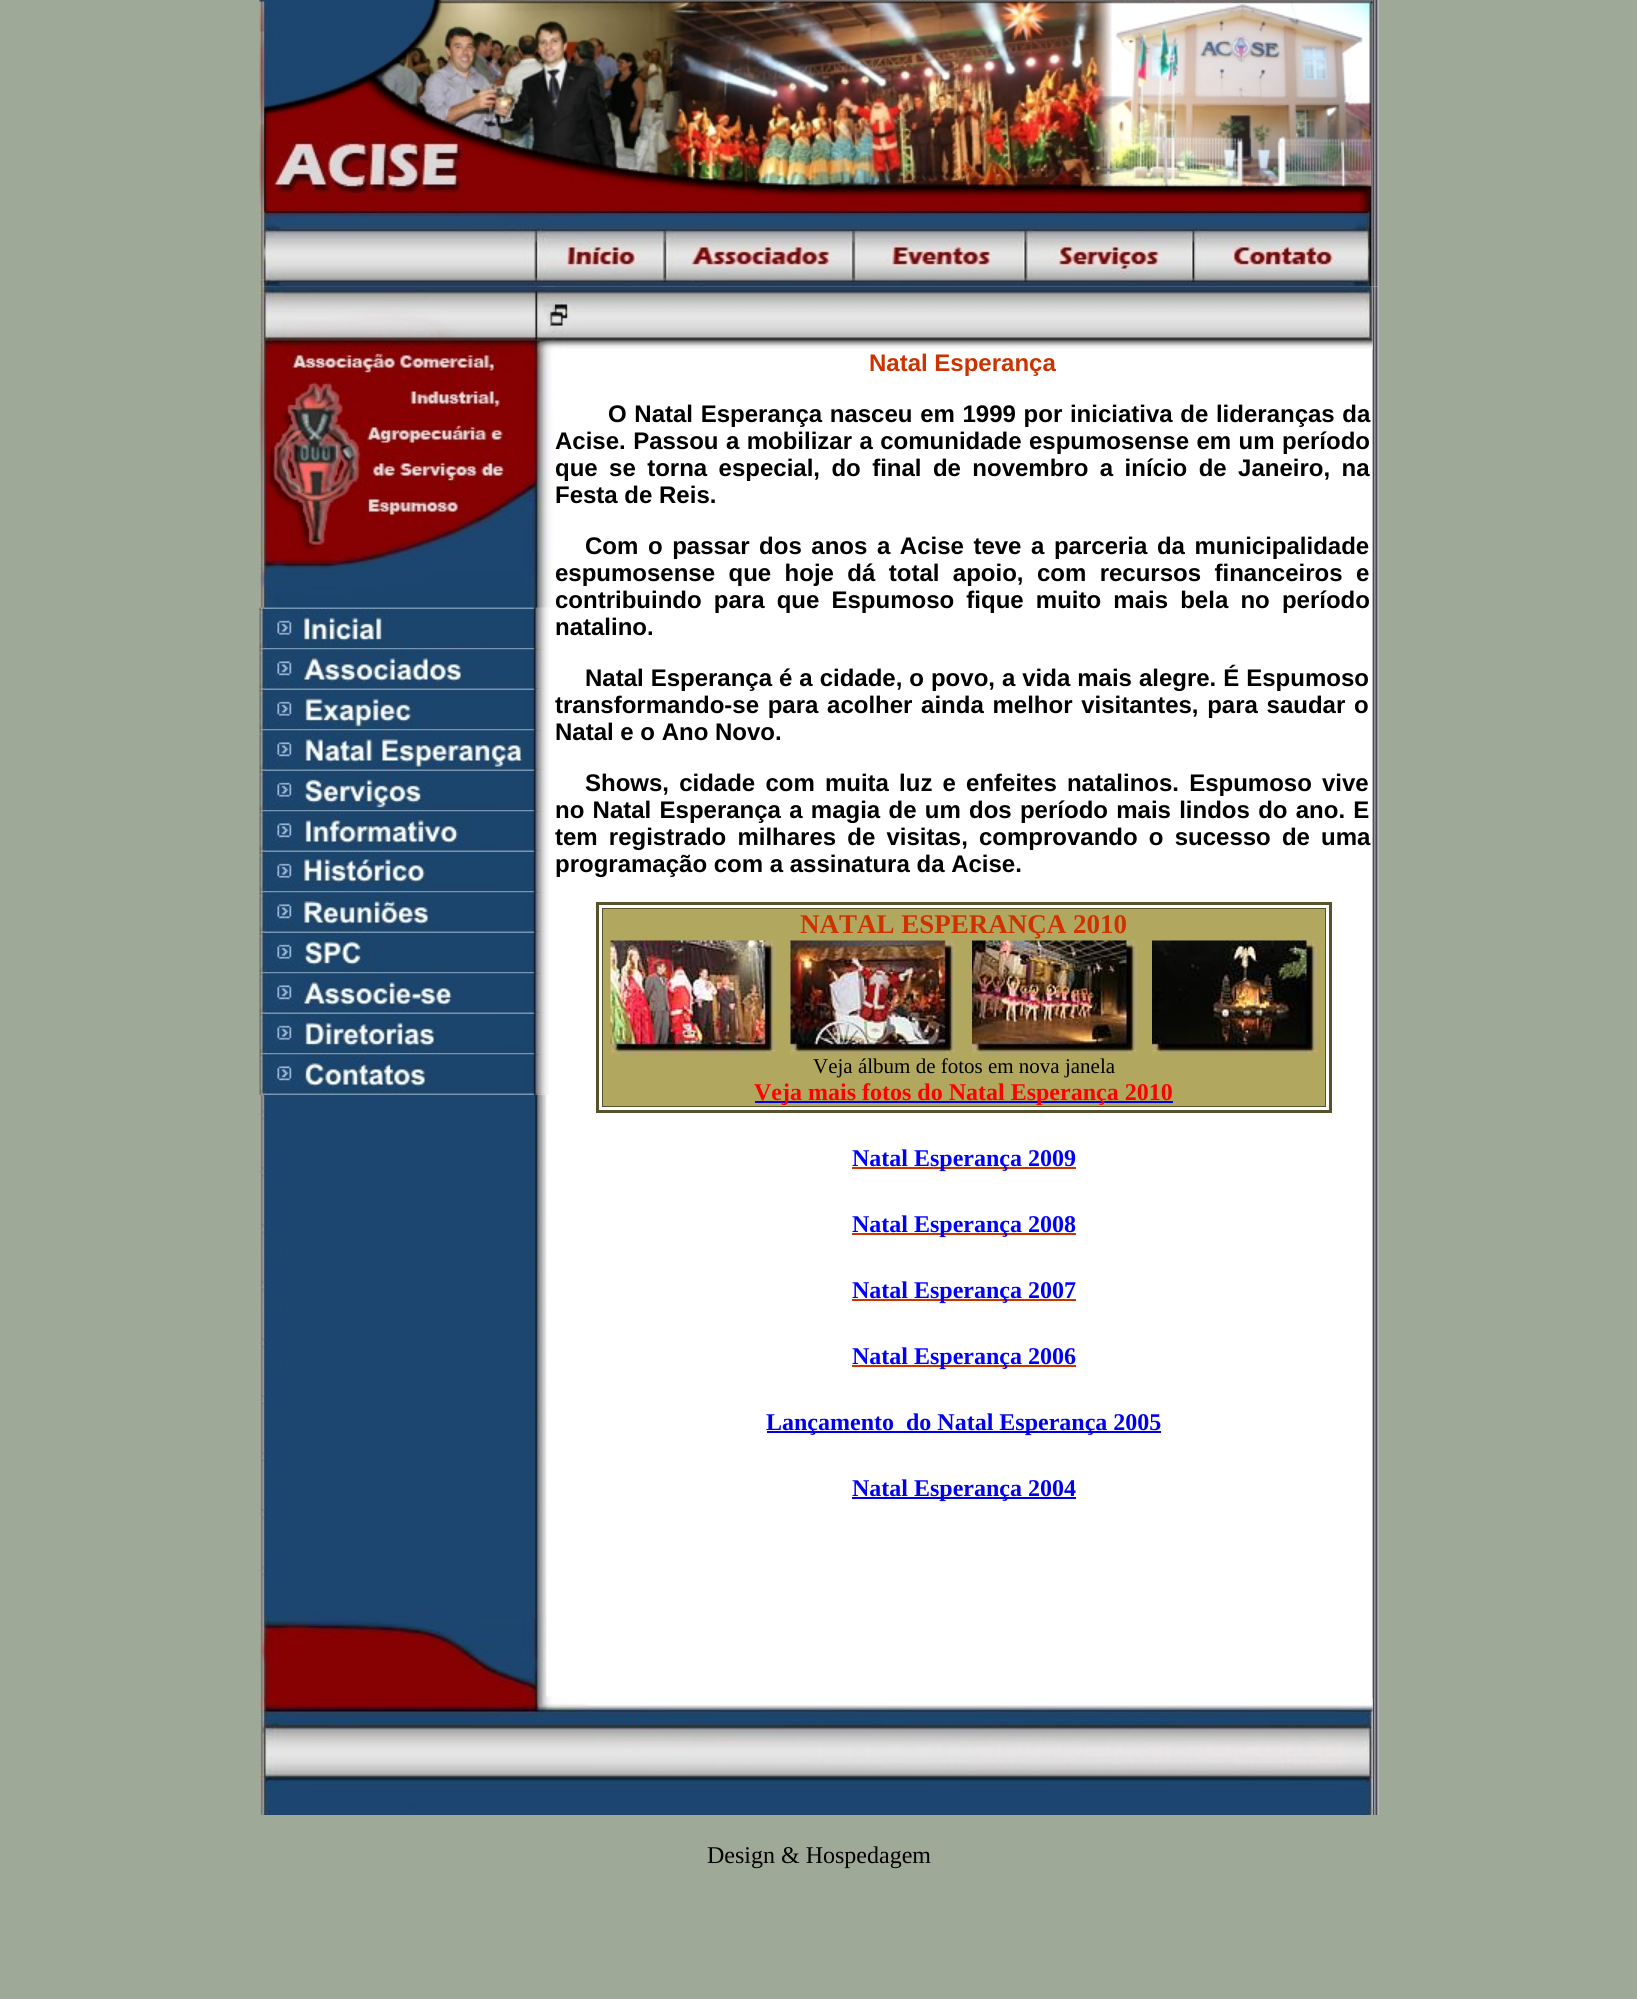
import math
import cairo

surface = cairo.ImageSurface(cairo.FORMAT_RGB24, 1637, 1999)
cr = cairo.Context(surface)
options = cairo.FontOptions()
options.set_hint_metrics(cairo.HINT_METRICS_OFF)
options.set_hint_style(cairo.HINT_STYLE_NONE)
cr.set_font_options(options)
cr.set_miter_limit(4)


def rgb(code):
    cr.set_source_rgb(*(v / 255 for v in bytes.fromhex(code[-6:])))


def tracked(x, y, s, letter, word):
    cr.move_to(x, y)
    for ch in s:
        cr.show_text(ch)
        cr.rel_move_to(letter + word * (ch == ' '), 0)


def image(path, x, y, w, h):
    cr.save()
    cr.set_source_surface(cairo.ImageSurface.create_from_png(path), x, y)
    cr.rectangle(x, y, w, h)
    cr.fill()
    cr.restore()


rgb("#9ea998")
cr.paint()
rgb("#ffffff")
cr.rectangle(260, 0, 1119, 1815)
cr.fill()
image("img/1.png", 259, 0, 1114, 287)
image("img/3.png", 1372, 0, 7, 287)
image("img/4.png", 259, 286, 296, 1328)
image("img/36.png", 1372, 286, 7, 1328)
image("img/2.png", 259, 0, 1114, 287)
image("img/5.png", 259, 286, 296, 322)
image("img/6.png", 259, 607, 290, 2)
image("img/7.png", 259, 609, 290, 39)
image("img/8.png", 259, 648, 290, 2)
image("img/9.png", 259, 649, 290, 40)
image("img/10.png", 259, 688, 290, 2)
image("img/11.png", 259, 690, 290, 39)
image("img/12.png", 259, 729, 290, 2)
image("img/13.png", 259, 730, 290, 40)
image("img/14.png", 259, 769, 290, 2)
image("img/15.png", 259, 771, 290, 39)
image("img/16.png", 259, 810, 290, 2)
image("img/17.png", 259, 811, 290, 40)
image("img/18.png", 259, 850, 290, 2)
image("img/19.png", 259, 852, 290, 39)
image("img/20.png", 259, 891, 290, 2)
image("img/21.png", 259, 892, 290, 40)
image("img/22.png", 259, 931, 290, 2)
image("img/23.png", 259, 933, 290, 39)
image("img/24.png", 259, 972, 290, 2)
image("img/25.png", 259, 973, 290, 40)
image("img/26.png", 259, 1012, 290, 2)
image("img/27.png", 259, 1014, 290, 39)
image("img/28.png", 259, 1053, 290, 2)
image("img/29.png", 259, 1054, 290, 40)
image("img/30.png", 259, 1093, 290, 2)
image("img/31.png", 555, 286, 818, 64)
cr.rectangle(597.5, 903.5, 733, 208)
rgb("#57522b")
cr.set_line_width(3)
cr.stroke()
cr.rectangle(603, 909, 722, 197)
cr.set_line_width(2)
cr.stroke()
rgb("#b1a75f")
cr.rectangle(603, 909, 722, 197)
cr.fill()
image("img/32.png", 610, 940, 166, 115)
image("img/33.png", 790, 940, 166, 115)
image("img/34.png", 972, 940, 165, 115)
image("img/35.png", 1152, 940, 165, 115)
for x, y, w, h, color in [
    (755, 1101, 418, 2, "#0000ee"),
    (852, 1167, 224, 2, "#cc3300"),
    (852, 1233, 224, 2, "#cc3300"),
    (852, 1299, 224, 2, "#cc3300"),
    (852, 1365, 224, 2, "#cc3300"),
    (767, 1431, 394, 2, "#0000ee"),
    (852, 1497, 224, 2, "#0000ee"),
]:
    rgb(color)
    cr.rectangle(x, y, w, h)
    cr.fill()
image("img/37.png", 259, 1614, 293, 84)
image("img/38.png", 1372, 1614, 7, 84)
image("img/40.png", 1372, 1698, 7, 117)
image("img/39.png", 259, 1698, 1114, 117)
cr.select_font_face("Liberation Sans", cairo.FONT_SLANT_NORMAL, cairo.FONT_WEIGHT_BOLD)
cr.set_font_size(24)
rgb("#cc3300")
cr.move_to(869, 371)
cr.show_text("Natal Esperança")
rgb("#000000")
tracked(608, 422, "O Natal Esperança nasceu em 1999 por iniciativa de lideranças da", 0, 1)
tracked(555, 449, "Acise. Passou a mobilizar a comunidade espumosense em um período", 0, 0.75)
tracked(555, 476, "que se torna especial, do final de novembro a início de Janeiro, na", 0, 4.75)
cr.move_to(555, 503)
cr.show_text("Festa de Reis.")
tracked(585, 554, "Com o passar dos anos a Acise teve a parceria da municipalidade", 0, 2.9)
tracked(555, 581, "espumosense que hoje dá total apoio, com recursos financeiros e", 0, 6.75)
tracked(555, 608, "contribuindo para que Espumoso fique muito mais bela no período", 0, 5.5)
cr.move_to(555, 635)
cr.show_text("natalino.")
tracked(585, 686, "Natal Esperança é a cidade, o povo, a vida mais alegre. É Espumoso", 0, 0.3)
tracked(555, 713, "transformando-se para acolher ainda melhor visitantes, para saudar o", 0, 2)
cr.move_to(555, 740)
cr.show_text("Natal e o Ano Novo.")
tracked(585, 791, "Shows, cidade com muita luz e enfeites natalinos. Espumoso vive", 0, 3.5)
tracked(555, 818, "no Natal Esperança a magia de um dos período mais lindos do ano. E", 0, 1.6)
tracked(555, 845, "tem registrado milhares de visitas, comprovando o sucesso de uma", 0, 4.5)
cr.move_to(555, 872)
cr.show_text("programação com a assinatura da Acise.")
cr.select_font_face("Liberation Serif", cairo.FONT_SLANT_NORMAL, cairo.FONT_WEIGHT_BOLD)
cr.set_font_size(27)
rgb("#cc3300")
cr.move_to(800, 933)
cr.show_text("NATAL ESPERANÇA 2010")
cr.select_font_face("Liberation Serif")
cr.set_font_size(21)
rgb("#000000")
cr.move_to(813, 1073)
cr.show_text("Veja álbum de fotos em nova janela")
cr.select_font_face("Liberation Serif", cairo.FONT_SLANT_NORMAL, cairo.FONT_WEIGHT_BOLD)
cr.set_font_size(24)
rgb("#ff0000")
cr.move_to(754, 1100)
cr.show_text("Veja mais fotos do Natal Esperança 2010")
rgb("#0000ff")
for x, y, s in [
    (852, 1166, "Natal Esperança 2009"),
    (852, 1232, "Natal Esperança 2008"),
    (852, 1298, "Natal Esperança 2007"),
    (852, 1364, "Natal Esperança 2006"),
]:
    cr.move_to(x, y)
    cr.show_text(s)
rgb("#0000ee")
cr.move_to(766, 1430)
cr.show_text("Lançamento  do Natal Esperança 2005")
cr.move_to(852, 1496)
cr.show_text("Natal Esperança 2004")
cr.select_font_face("Liberation Serif")
rgb("#000000")
cr.move_to(707, 1863)
cr.show_text("Design & Hospedagem")
surface.write_to_png("page.png")
